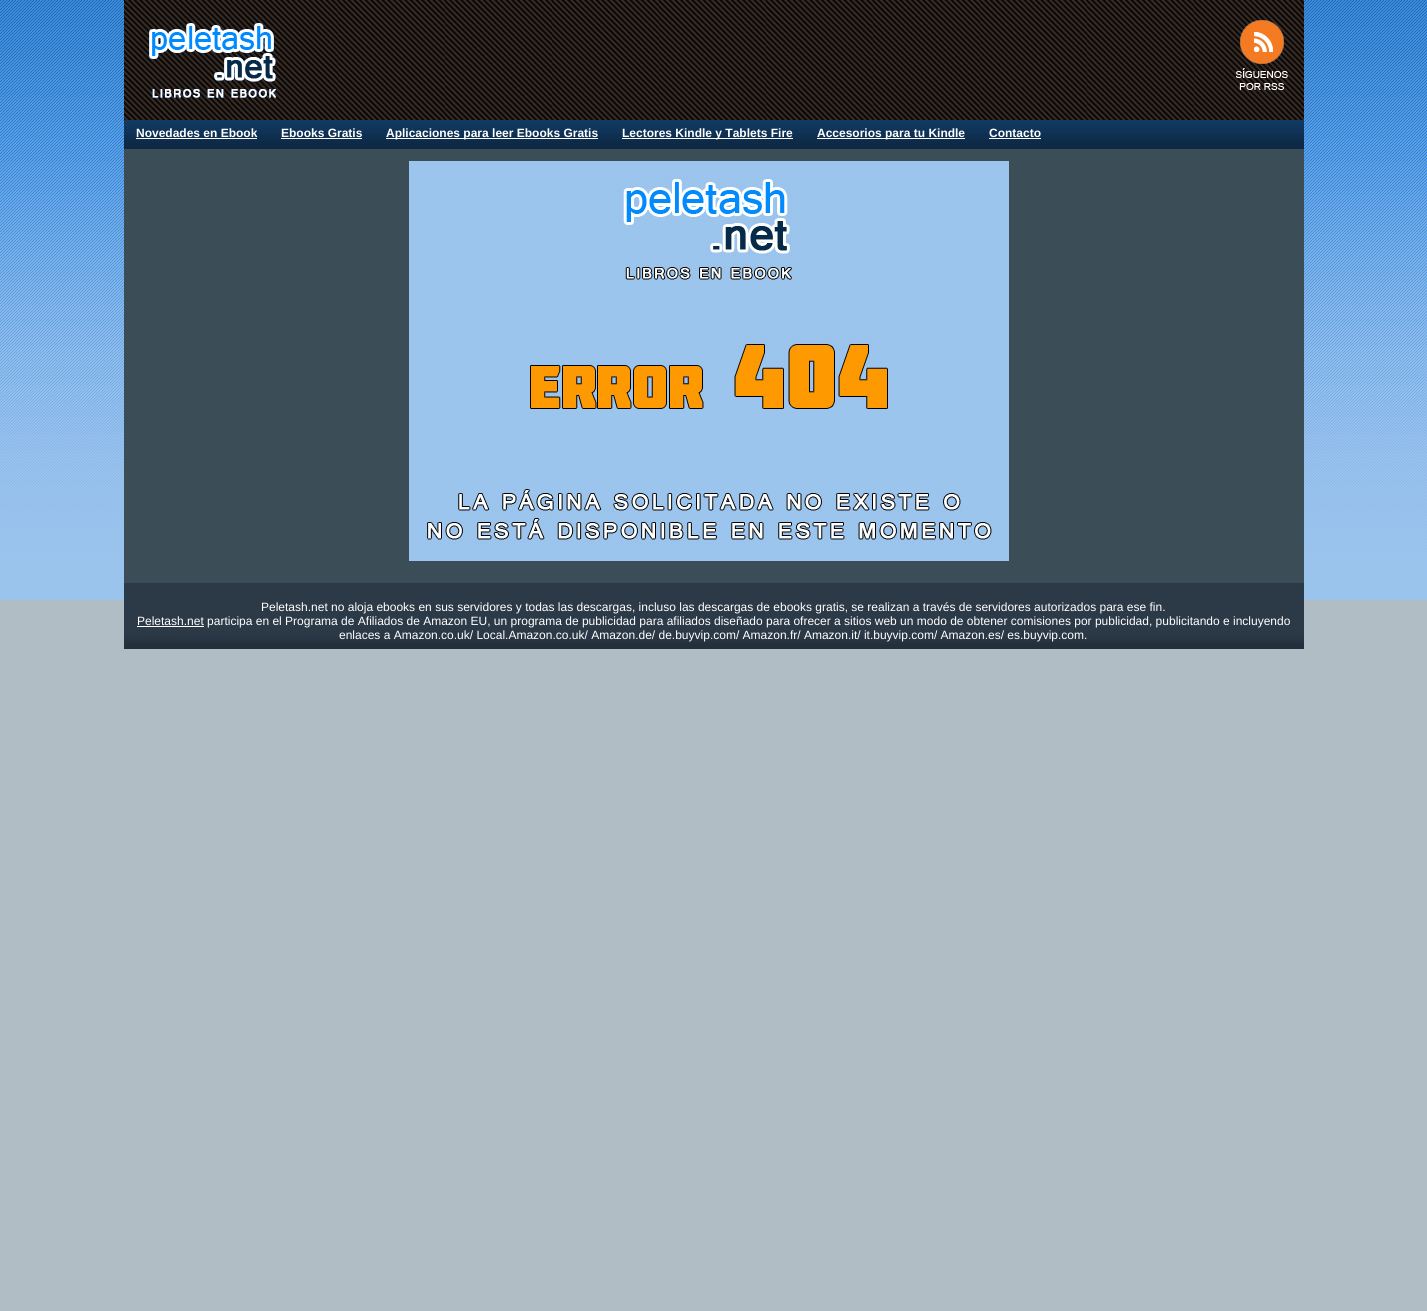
import math
import cairo

surface = cairo.ImageSurface(cairo.FORMAT_RGB24, 1427, 1311)
cr = cairo.Context(surface)
options = cairo.FontOptions()
options.set_hint_metrics(cairo.HINT_METRICS_OFF)
options.set_hint_style(cairo.HINT_STYLE_NONE)
cr.set_font_options(options)
cr.set_miter_limit(4)


def rgb(code):
    cr.set_source_rgb(*(v / 255 for v in bytes.fromhex(code[-6:])))


def image(path, x, y, w, h):
    cr.save()
    cr.set_source_surface(cairo.ImageSurface.create_from_png(path), x, y)
    cr.rectangle(x, y, w, h)
    cr.fill()
    cr.restore()


rgb("#b0bdc5")
cr.paint()
image("img/1.png", 0, 0, 1427, 600)
rgb("#3b4d56")
cr.rectangle(124, 149, 1180, 434)
cr.fill()
image("img/2.png", 124, 0, 1180, 120)
image("img/3.png", 149, 23, 127, 75)
image("img/4.png", 1235, 20, 53, 70)
image("img/5.png", 124, 120, 1180, 29)
for x, y, w, h, color in [
    (136, 138, 121, 1, "#ffffff"),
    (281, 138, 81, 1, "#ffffff"),
    (386, 138, 212, 1, "#ffffff"),
    (622, 138, 171, 1, "#ffffff"),
    (817, 138, 148, 1, "#ffffff"),
    (989, 138, 52, 1, "#ffffff"),
]:
    rgb(color)
    cr.rectangle(x, y, w, h)
    cr.fill()
image("img/6.png", 409, 161, 600, 400)
image("img/7.png", 124, 583, 1180, 66)
cr.rectangle(137, 626, 67, 1)
cr.fill()
cr.select_font_face("Liberation Sans", cairo.FONT_SLANT_NORMAL, cairo.FONT_WEIGHT_BOLD)
cr.set_font_size(12)
for x, y, s in [
    (136, 137, "Novedades en Ebook"),
    (281, 137, "Ebooks Gratis"),
    (386, 137, "Aplicaciones para leer Ebooks Gratis"),
    (622, 137, "Lectores Kindle y Tablets Fire"),
    (817, 137, "Accesorios para tu Kindle"),
    (989, 137, "Contacto"),
]:
    cr.move_to(x, y)
    cr.show_text(s)
cr.select_font_face("Liberation Sans")
for x, y, s in [
    (261, 611, "Peletash.net no aloja ebooks en sus servidores y todas las descargas, incluso las descargas de ebooks gratis, se realizan a través de servidores autorizados para ese fin."),
    (137, 625, "Peletash.net participa en el Programa de Afiliados de Amazon EU, un programa de publicidad para afiliados diseñado para ofrecer a sitios web un modo de obtener comisiones por publicidad, publicitando e incluyendo"),
    (339, 639, "enlaces a Amazon.co.uk/ Local.Amazon.co.uk/ Amazon.de/ de.buyvip.com/ Amazon.fr/ Amazon.it/ it.buyvip.com/ Amazon.es/ es.buyvip.com."),
]:
    cr.move_to(x, y)
    cr.show_text(s)
surface.write_to_png("page.png")
